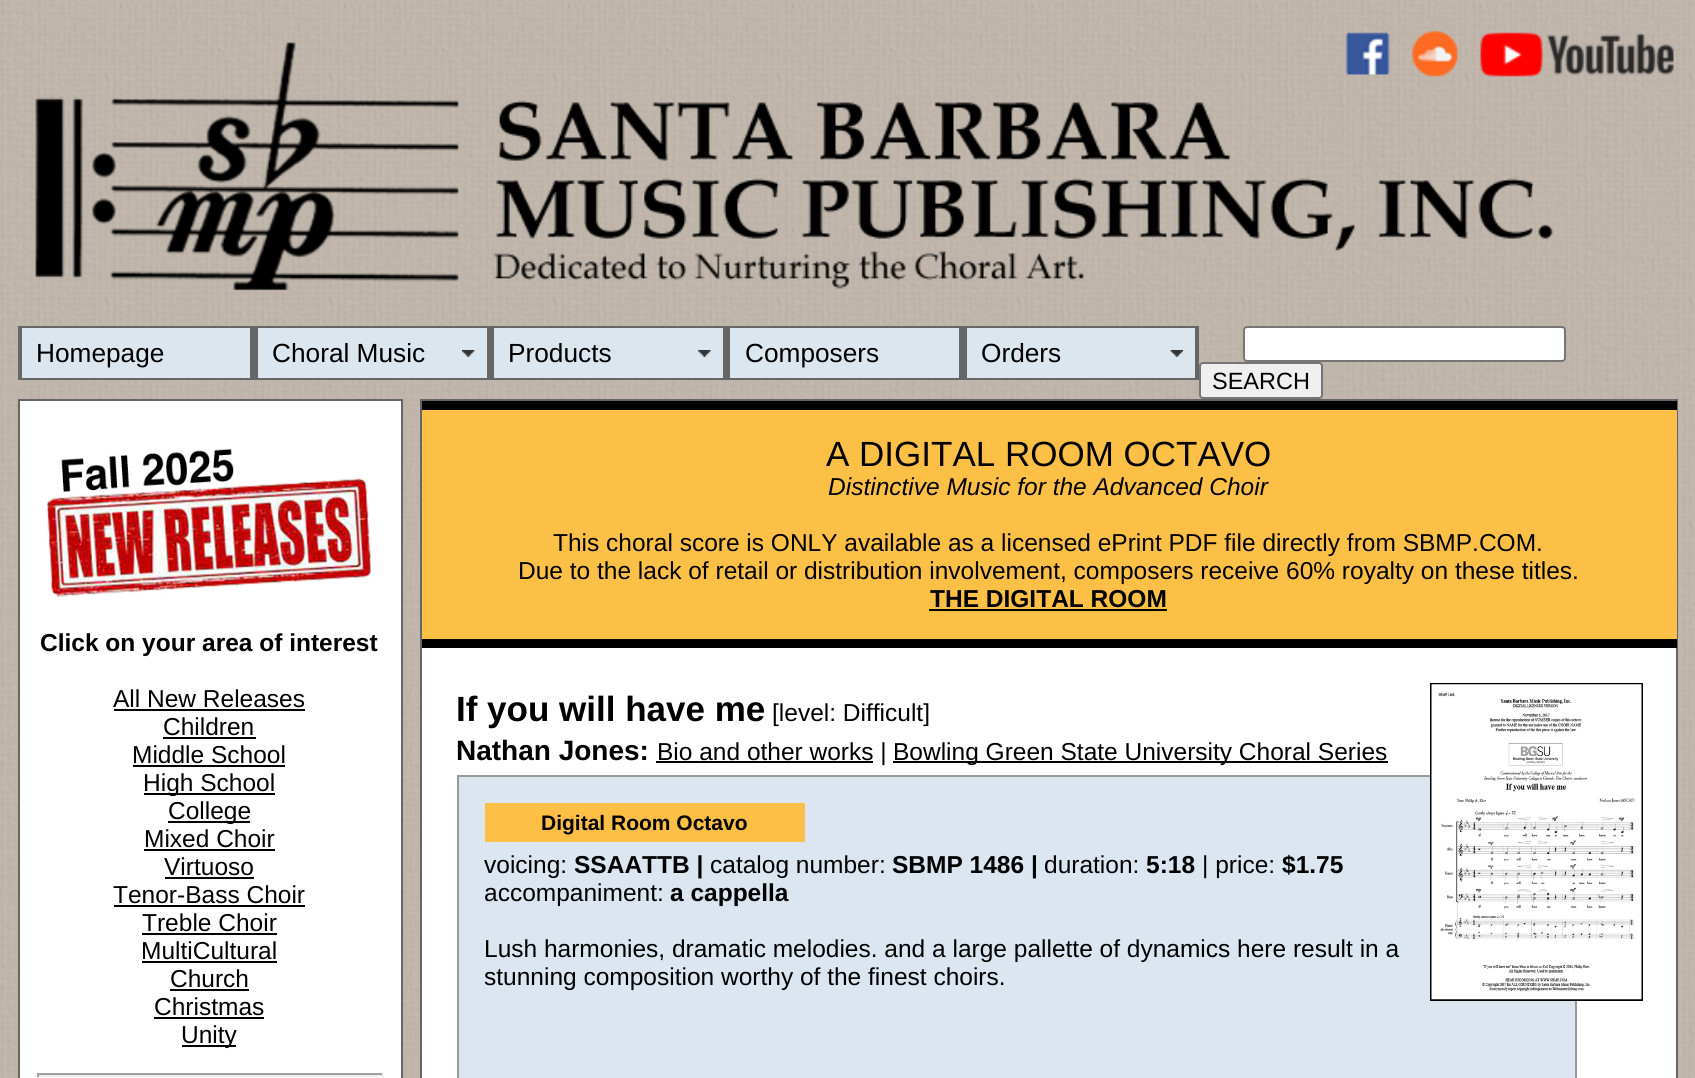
import math
import cairo

surface = cairo.ImageSurface(cairo.FORMAT_RGB24, 1695, 1078)
cr = cairo.Context(surface)
options = cairo.FontOptions()
options.set_hint_metrics(cairo.HINT_METRICS_OFF)
options.set_hint_style(cairo.HINT_STYLE_NONE)
cr.set_font_options(options)
cr.set_miter_limit(4)


def rgb(code):
    cr.set_source_rgb(*(v / 255 for v in bytes.fromhex(code[-6:])))


def rrect(x, y, w, h, r):
    cr.new_sub_path()
    for i, (u, v) in enumerate([(x + w - r, y + h - r), (x + r, y + h - r), (x + r, y + r), (x + w - r, y + r)]):
        cr.arc(u, v, r, i * math.pi / 2, (i + 1) * math.pi / 2)
    cr.close_path()


def image(path, x, y, w, h):
    cr.save()
    cr.set_source_surface(cairo.ImageSurface.create_from_png(path), x, y)
    cr.rectangle(x, y, w, h)
    cr.fill()
    cr.restore()


rgb("#ffffff")
cr.paint()
image("img/1.png", 0, 0, 1695, 1078)
image("img/2.png", 35, 31, 1639, 260)
for x, y, w, h, color in [
    (22, 328, 228, 50, "#dce6ef"),
    (18, 326, 1181, 2, "#666666"),
    (250, 326, 4, 54, "#666666"),
    (18, 378, 236, 2, "#666666"),
    (18, 326, 4, 54, "#666666"),
    (258, 328, 229, 50, "#dce6ef"),
]:
    rgb(color)
    cr.rectangle(x, y, w, h)
    cr.fill()
image("img/3.png", 462, 350, 13, 7)
for x, y, w, h, color in [
    (487, 326, 3, 54, "#666666"),
    (254, 378, 236, 2, "#666666"),
    (254, 326, 4, 54, "#666666"),
    (494, 328, 229, 50, "#dce6ef"),
]:
    rgb(color)
    cr.rectangle(x, y, w, h)
    cr.fill()
image("img/4.png", 698, 350, 13, 7)
for x, y, w, h, color in [
    (723, 326, 3, 54, "#666666"),
    (490, 378, 236, 2, "#666666"),
    (490, 326, 4, 54, "#666666"),
    (730, 328, 229, 50, "#dce6ef"),
    (959, 326, 4, 54, "#666666"),
    (726, 378, 237, 2, "#666666"),
    (726, 326, 4, 54, "#666666"),
    (967, 328, 228, 50, "#dce6ef"),
]:
    rgb(color)
    cr.rectangle(x, y, w, h)
    cr.fill()
image("img/5.png", 1170, 350, 13, 7)
for x, y, w, h, color in [
    (1195, 326, 4, 54, "#666666"),
    (963, 378, 236, 2, "#666666"),
    (963, 326, 4, 54, "#666666"),
]:
    rgb(color)
    cr.rectangle(x, y, w, h)
    cr.fill()
rgb("#ffffff")
rrect(1244, 327, 321, 34, 3)
cr.fill_preserve()
rgb("#767676")
cr.stroke()
rgb("#efefef")
rrect(1200, 363, 122, 35, 3)
cr.fill_preserve()
rgb("#767676")
cr.stroke()
rgb("#ffffff")
cr.rectangle(19, 400, 383, 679)
cr.fill_preserve()
rgb("#666666")
cr.stroke()
image("img/6.png", 47, 448, 324, 149)
for x, y, w, h, color in [
    (114, 709, 191, 2, "#000000"),
    (163, 737, 93, 2, "#000000"),
    (133, 765, 152, 2, "#000000"),
    (144, 793, 131, 2, "#000000"),
    (168, 821, 82, 2, "#000000"),
    (144, 849, 131, 2, "#000000"),
    (165, 877, 89, 2, "#000000"),
    (114, 905, 191, 2, "#000000"),
    (142, 933, 135, 2, "#000000"),
    (142, 961, 135, 2, "#000000"),
    (170, 989, 79, 2, "#000000"),
    (154, 1017, 110, 2, "#000000"),
    (182, 1045, 54, 2, "#000000"),
    (37, 1073, 346, 2, "#9f9f9f"),
    (382, 1073, 2, 4, "#eeeeee"),
    (37, 1075, 346, 2, "#eeeeee"),
    (37, 1073, 2, 4, "#9f9f9f"),
    (422, 648, 1254, 430, "#ffffff"),
]:
    rgb(color)
    cr.rectangle(x, y, w, h)
    cr.fill()
cr.rectangle(421, 400, 1256, 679)
rgb("#666666")
cr.stroke()
for x, y, w, h, color in [
    (422, 410, 1255, 229, "#fdc046"),
    (422, 401, 1255, 9, "#000000"),
    (422, 639, 1255, 9, "#000000"),
    (929, 609, 238, 2, "#000000"),
]:
    rgb(color)
    cr.rectangle(x, y, w, h)
    cr.fill()
rgb("#dbe6f0")
cr.rectangle(458, 776, 1118, 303)
cr.fill_preserve()
rgb("#999999")
cr.stroke()
cr.rectangle(1431, 684, 211, 316)
rgb("#000000")
cr.stroke()
image("img/7.png", 1431, 684, 211, 316)
for x, y, w, h, color in [
    (656, 761, 217, 2, "#000000"),
    (893, 761, 495, 2, "#000000"),
    (485, 803, 320, 39, "#fdbf46"),
]:
    rgb(color)
    cr.rectangle(x, y, w, h)
    cr.fill()
cr.select_font_face("Liberation Sans")
cr.set_font_size(26.25)
rgb("#000000")
for x, y, s in [
    (36, 362, "Homepage"),
    (272, 362, "Choral Music"),
    (508, 362, "Products"),
    (745, 362, "Composers"),
    (981, 362, "Orders"),
]:
    cr.move_to(x, y)
    cr.show_text(s)
cr.set_font_size(23.5)
cr.move_to(1212, 389)
cr.show_text("SEARCH")
cr.select_font_face("Liberation Sans", cairo.FONT_SLANT_NORMAL, cairo.FONT_WEIGHT_BOLD)
cr.set_font_size(24.5)
cr.move_to(40, 651)
cr.show_text("Click on your area of interest")
cr.select_font_face("Liberation Sans")
for x, y, s in [
    (113, 707, "All New Releases"),
    (163, 735, "Children"),
    (132, 763, "Middle School"),
    (143, 791, "High School"),
    (168, 819, "College"),
    (144, 847, "Mixed Choir"),
    (164, 875, "Virtuoso"),
    (113, 903, "Tenor-Bass Choir"),
    (142, 931, "Treble Choir"),
    (141, 959, "MultiCultural"),
    (170, 987, "Church"),
    (154, 1015, "Christmas"),
    (181, 1043, "Unity"),
]:
    cr.move_to(x, y)
    cr.show_text(s)
cr.set_font_size(35)
cr.move_to(826, 466)
cr.show_text("A DIGITAL ROOM OCTAVO")
cr.select_font_face("Liberation Sans", cairo.FONT_SLANT_ITALIC)
cr.set_font_size(24.5)
cr.move_to(828, 495)
cr.show_text("Distinctive Music for the Advanced Choir")
cr.select_font_face("Liberation Sans")
cr.move_to(553, 551)
cr.show_text("This choral score is ONLY available as a licensed ePrint PDF file directly from SBMP.COM.")
cr.move_to(518, 579)
cr.show_text("Due to the lack of retail or distribution involvement, composers receive 60% royalty on these titles.")
cr.select_font_face("Liberation Sans", cairo.FONT_SLANT_NORMAL, cairo.FONT_WEIGHT_BOLD)
cr.move_to(930, 607)
cr.show_text("THE DIGITAL ROOM")
cr.set_font_size(35)
cr.move_to(456, 721)
cr.show_text("If you will have me")
cr.select_font_face("Liberation Sans")
cr.set_font_size(24.5)
cr.move_to(772, 721)
cr.show_text("[level: Difficult]")
cr.select_font_face("Liberation Sans", cairo.FONT_SLANT_NORMAL, cairo.FONT_WEIGHT_BOLD)
cr.set_font_size(28)
cr.move_to(456, 760)
cr.show_text("Nathan Jones:")
cr.select_font_face("Liberation Sans")
cr.set_font_size(24.5)
cr.move_to(657, 760)
cr.show_text("Bio and other works |")
cr.move_to(893, 760)
cr.show_text("Bowling Green State University Choral Series")
cr.select_font_face("Liberation Sans", cairo.FONT_SLANT_NORMAL, cairo.FONT_WEIGHT_BOLD)
cr.set_font_size(21)
cr.move_to(541, 830)
cr.show_text("Digital Room Octavo")
cr.select_font_face("Liberation Sans")
cr.set_font_size(24.5)
cr.move_to(484, 873)
cr.show_text("voicing:")
cr.select_font_face("Liberation Sans", cairo.FONT_SLANT_NORMAL, cairo.FONT_WEIGHT_BOLD)
cr.move_to(574, 873)
cr.show_text("SSAATTB |")
cr.select_font_face("Liberation Sans")
cr.move_to(710, 873)
cr.show_text("catalog number:")
cr.select_font_face("Liberation Sans", cairo.FONT_SLANT_NORMAL, cairo.FONT_WEIGHT_BOLD)
cr.move_to(892, 873)
cr.show_text("SBMP 1486 |")
cr.select_font_face("Liberation Sans")
cr.move_to(1044, 873)
cr.show_text("duration:")
cr.select_font_face("Liberation Sans", cairo.FONT_SLANT_NORMAL, cairo.FONT_WEIGHT_BOLD)
cr.move_to(1146, 873)
cr.show_text("5:18")
cr.select_font_face("Liberation Sans")
cr.move_to(1202, 873)
cr.show_text("| price:")
cr.select_font_face("Liberation Sans", cairo.FONT_SLANT_NORMAL, cairo.FONT_WEIGHT_BOLD)
cr.move_to(1282, 873)
cr.show_text("$1.75")
cr.select_font_face("Liberation Sans")
cr.move_to(484, 901)
cr.show_text("accompaniment:")
cr.select_font_face("Liberation Sans", cairo.FONT_SLANT_NORMAL, cairo.FONT_WEIGHT_BOLD)
cr.move_to(670, 901)
cr.show_text("a cappella")
cr.select_font_face("Liberation Sans")
cr.move_to(484, 957)
cr.show_text("Lush harmonies, dramatic melodies. and a large pallette of dynamics here result in a")
cr.move_to(484, 985)
cr.show_text("stunning composition worthy of the finest choirs.")
surface.write_to_png("page.png")
